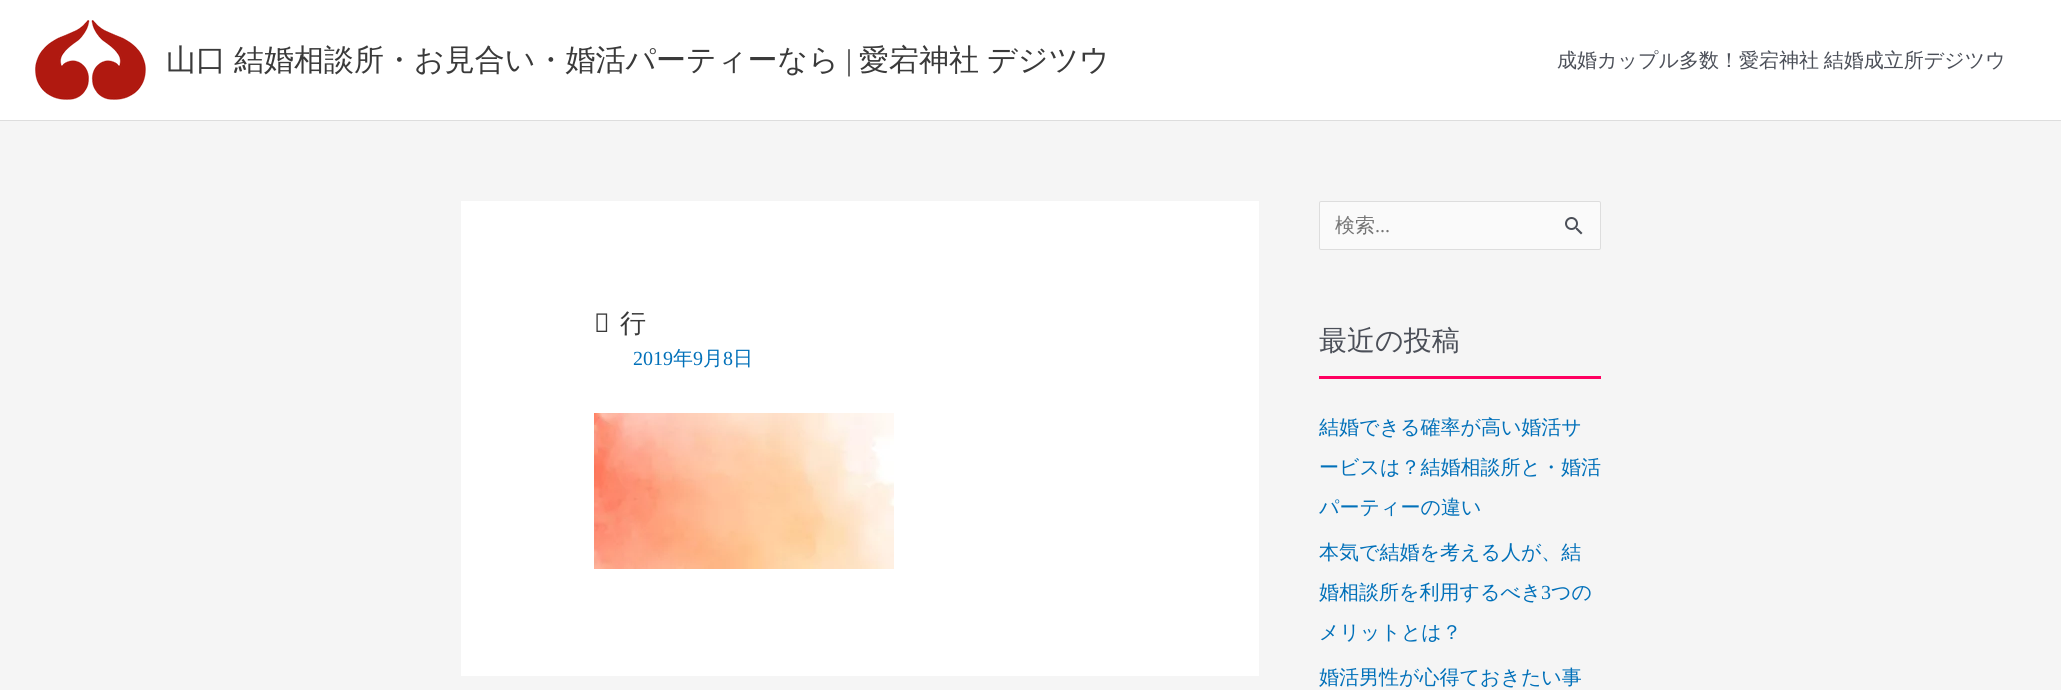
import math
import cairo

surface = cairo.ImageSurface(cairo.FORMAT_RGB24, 2061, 690)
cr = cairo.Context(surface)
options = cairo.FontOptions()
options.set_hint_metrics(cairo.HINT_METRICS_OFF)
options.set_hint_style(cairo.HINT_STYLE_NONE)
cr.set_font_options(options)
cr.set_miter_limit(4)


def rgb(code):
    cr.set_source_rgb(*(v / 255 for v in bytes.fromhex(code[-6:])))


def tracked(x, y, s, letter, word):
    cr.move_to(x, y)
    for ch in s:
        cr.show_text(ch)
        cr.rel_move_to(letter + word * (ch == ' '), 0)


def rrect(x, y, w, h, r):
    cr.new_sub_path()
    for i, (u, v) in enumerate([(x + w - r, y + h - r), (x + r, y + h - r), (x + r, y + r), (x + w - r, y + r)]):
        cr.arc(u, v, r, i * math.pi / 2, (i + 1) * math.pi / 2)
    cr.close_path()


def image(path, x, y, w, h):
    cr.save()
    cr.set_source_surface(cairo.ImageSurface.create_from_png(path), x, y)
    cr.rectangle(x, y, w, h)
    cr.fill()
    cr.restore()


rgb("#f5f5f5")
cr.paint()
rgb("#ffffff")
cr.rectangle(0, 0, 2061, 120)
cr.fill()
rgb("#dddddd")
cr.rectangle(0, 120, 2061, 1)
cr.fill()
image("img/1.png", 35, 20, 111, 80)
rgb("#ffffff")
cr.rectangle(461, 201, 798, 475)
cr.fill()
image("img/2.png", 594, 413, 300, 156)
rgb("#fafafa")
rrect(1319.5, 201.5, 281, 48, 1.5)
cr.fill_preserve()
rgb("#dddddd")
cr.set_line_width(1)
cr.stroke()
image("img/3.png", 1565, 217, 18, 18)
rgb("#ff0061")
cr.rectangle(1319, 376, 282, 3)
cr.fill()
cr.select_font_face("WenQuanYi Zen Hei Medium")
cr.set_font_size(30)
rgb("#3a3a3a")
tracked(166, 70, "山口 結婚相談所・お見合い・婚活パーティーなら", 0, -1)
cr.select_font_face("Liberation Serif")
cr.move_to(846, 70)
cr.show_text("|")
cr.select_font_face("WenQuanYi Zen Hei Medium")
tracked(859, 70, "愛宕神社 デジツウ", 0, -1)
cr.set_font_size(20)
rgb("#4b4f58")
tracked(1557, 67, "成婚カップル多数！愛宕神社 結婚成立所デジツウ", 0, -1)
cr.select_font_face("Noto Sans")
cr.set_font_size(26)
rgb("#3a3a3a")
cr.move_to(594, 332)
cr.show_text("一")
cr.select_font_face("WenQuanYi Zen Hei Medium")
cr.move_to(620, 332)
cr.show_text("行")
cr.select_font_face("Liberation Serif")
cr.set_font_size(20)
rgb("#0170b9")
cr.move_to(633, 365)
cr.show_text("2019")
cr.select_font_face("WenQuanYi Zen Hei Medium")
cr.move_to(673, 365)
cr.show_text("年")
cr.select_font_face("Liberation Serif")
cr.move_to(693, 365)
cr.show_text("9")
cr.select_font_face("WenQuanYi Zen Hei Medium")
cr.move_to(703, 365)
cr.show_text("月")
cr.select_font_face("Liberation Serif")
cr.move_to(723, 365)
cr.show_text("8")
cr.select_font_face("WenQuanYi Zen Hei Medium")
cr.move_to(733, 365)
cr.show_text("日")
rgb("#757575")
cr.move_to(1335, 232)
cr.show_text("検索")
cr.select_font_face("Liberation Serif")
cr.move_to(1375, 232)
cr.show_text("...")
cr.select_font_face("WenQuanYi Zen Hei Medium")
cr.set_font_size(28)
rgb("#4b4f58")
cr.move_to(1319, 350)
cr.show_text("最近の投稿")
cr.set_font_size(20)
rgb("#0170b9")
for x, y, s in [
    (1319, 434, "結婚できる確率が高い婚活サ"),
    (1319, 474, "ービスは？結婚相談所と・婚活"),
    (1319, 514, "パーティーの違い"),
    (1319, 559, "本気で結婚を考える人が、結"),
    (1319, 599, "婚相談所を利用するべき"),
]:
    cr.move_to(x, y)
    cr.show_text(s)
cr.select_font_face("Liberation Serif")
cr.move_to(1541, 599)
cr.show_text("3")
cr.select_font_face("WenQuanYi Zen Hei Medium")
for x, y, s in [
    (1551, 599, "つの"),
    (1319, 639, "メリットとは？"),
    (1319, 684, "婚活男性が心得ておきたい事"),
]:
    cr.move_to(x, y)
    cr.show_text(s)
surface.write_to_png("page.png")
